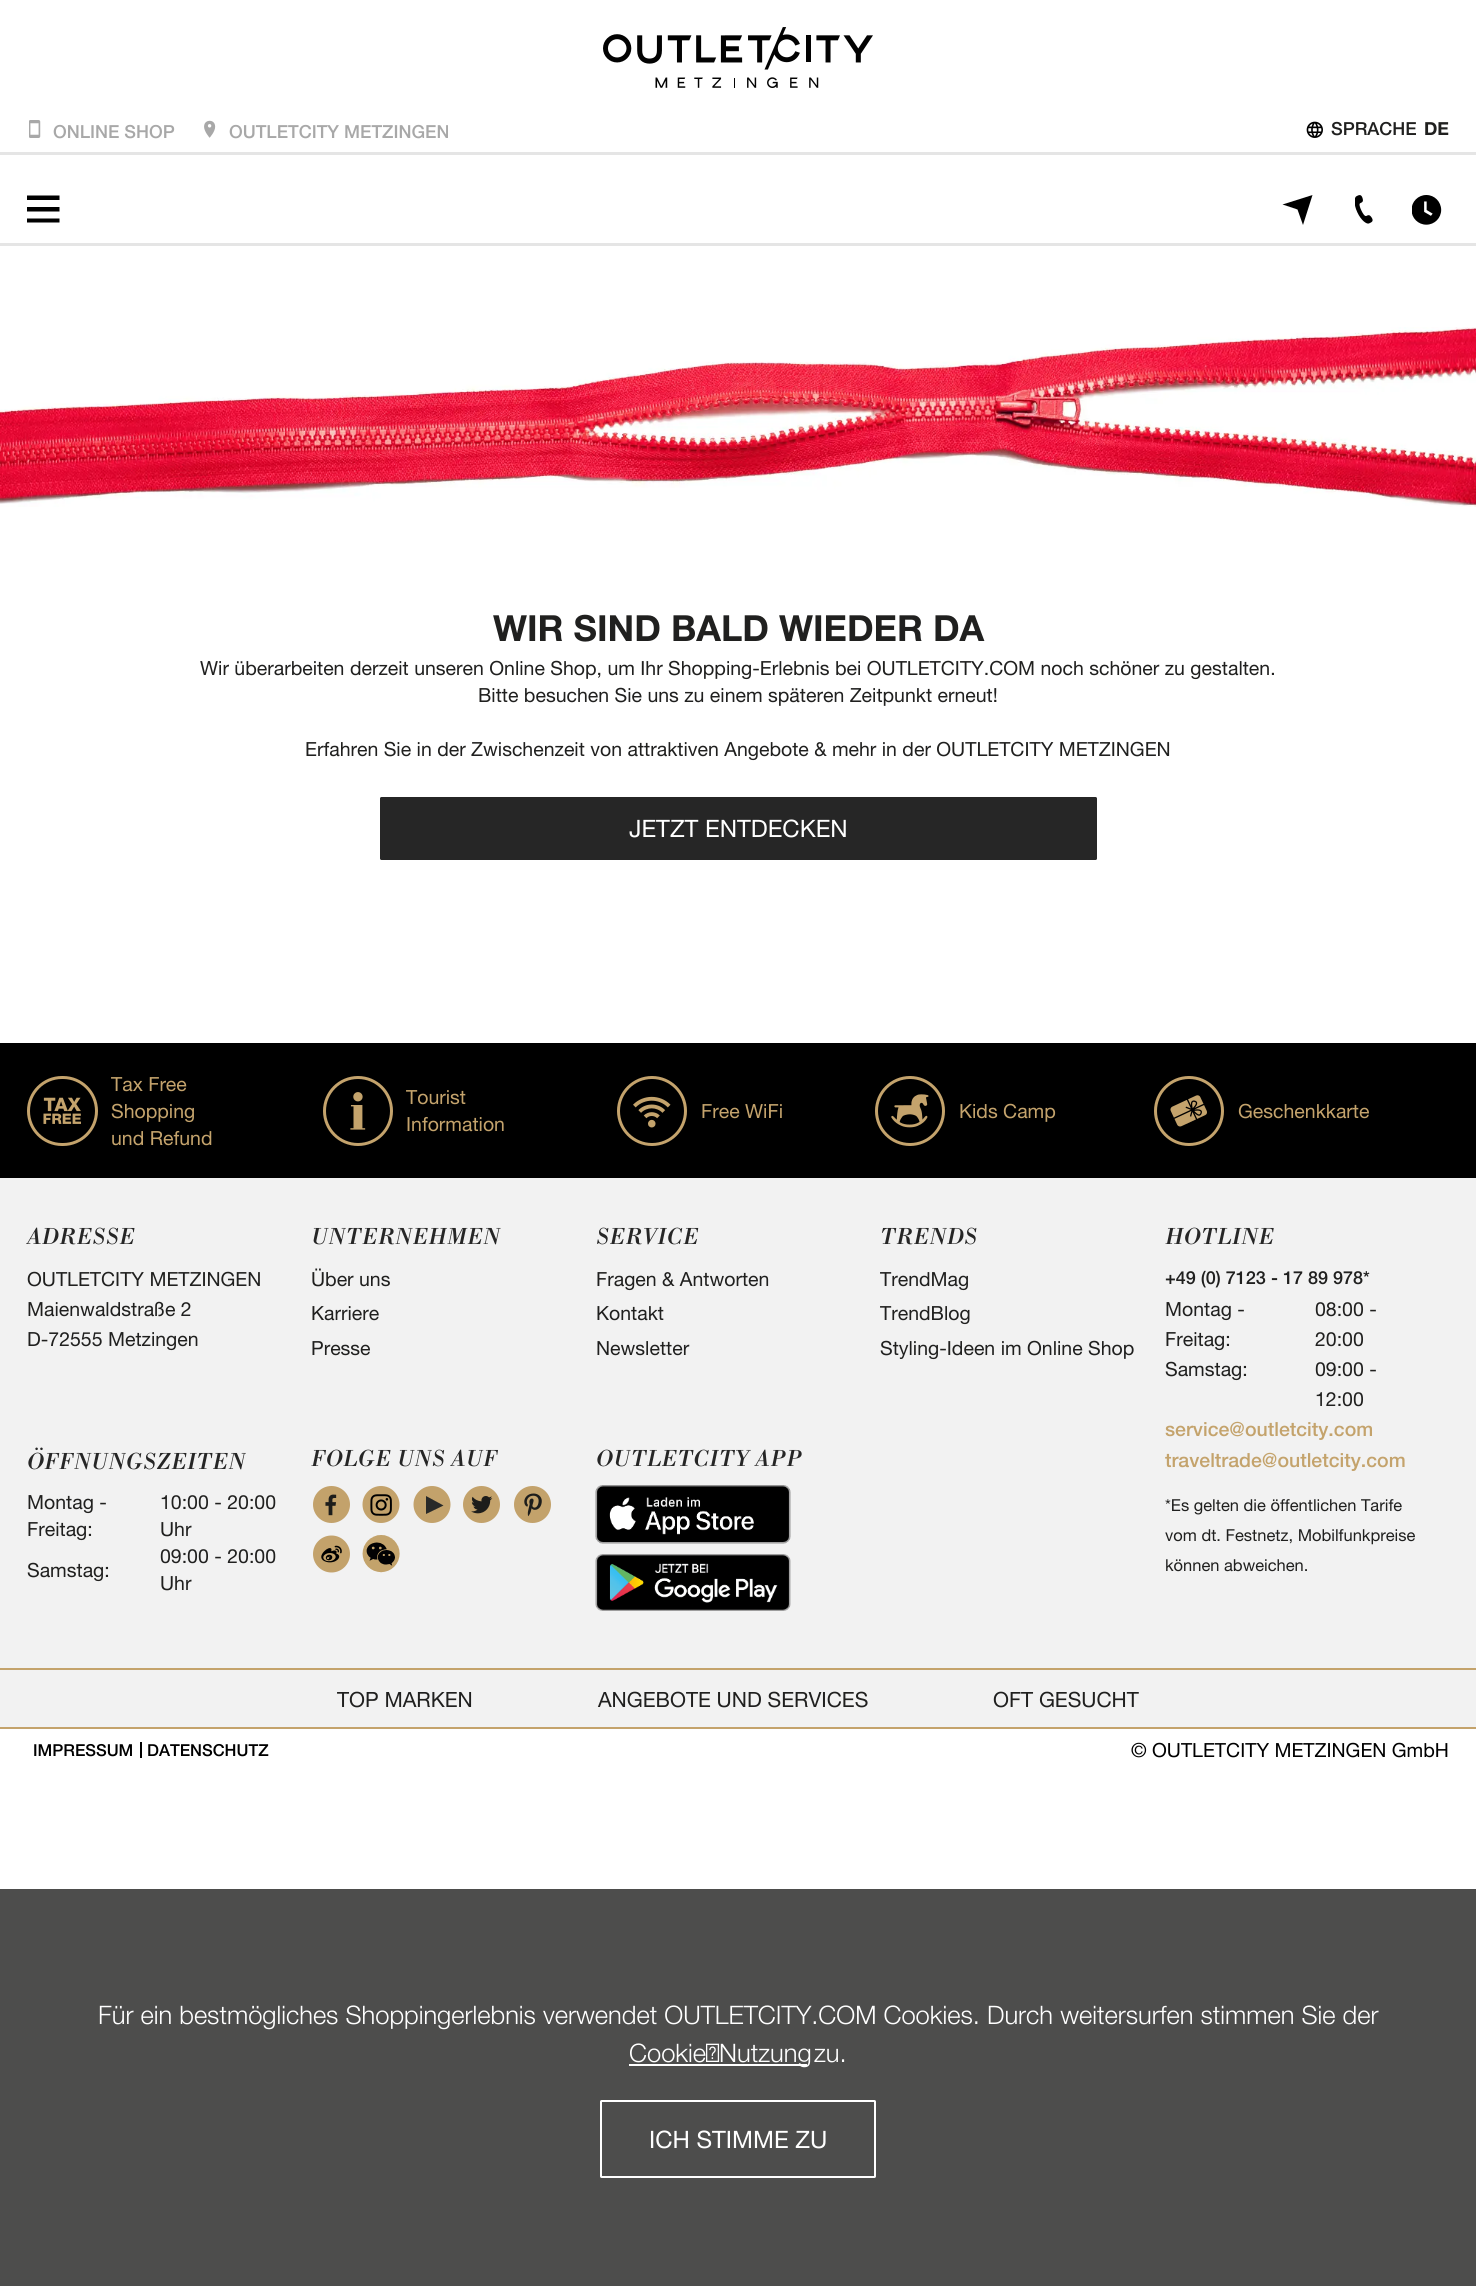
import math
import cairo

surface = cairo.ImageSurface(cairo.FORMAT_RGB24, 1476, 2286)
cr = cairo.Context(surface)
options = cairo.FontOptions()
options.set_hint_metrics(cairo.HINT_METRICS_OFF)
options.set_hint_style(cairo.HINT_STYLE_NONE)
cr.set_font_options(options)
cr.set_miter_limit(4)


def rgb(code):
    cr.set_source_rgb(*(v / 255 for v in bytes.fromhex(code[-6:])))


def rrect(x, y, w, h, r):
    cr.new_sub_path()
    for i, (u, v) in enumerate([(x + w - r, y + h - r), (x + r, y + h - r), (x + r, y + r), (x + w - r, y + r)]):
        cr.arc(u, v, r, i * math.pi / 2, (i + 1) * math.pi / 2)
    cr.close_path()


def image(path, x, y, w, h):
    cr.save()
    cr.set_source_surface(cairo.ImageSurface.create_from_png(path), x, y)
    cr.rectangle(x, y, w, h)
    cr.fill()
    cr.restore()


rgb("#ffffff")
cr.paint()
image("img/1.png", 603, 27, 270, 61)
rgb("#e5e5e5")
cr.rectangle(0, 152, 1476, 3)
cr.fill()
image("img/2.png", 29, 120, 12, 18)
image("img/3.png", 204, 120, 12, 18)
image("img/4.png", 1306, 121, 17, 17)
rgb("#000000")
cr.new_path()
cr.move_to(1303, 225)
cr.line_to(1297.5, 209.5)
cr.line_to(1282.5, 204.5)
cr.line_to(1312.5, 195)
cr.close_path()
cr.fill()
image("img/5.png", 1355, 195, 18, 29)
image("img/6.png", 1412, 195, 30, 30)
rgb("#e5e5e5")
cr.rectangle(0, 243, 1476, 3)
cr.fill()
rgb("#000000")
cr.new_path()
cr.move_to(27, 200)
cr.line_to(27, 195.5)
cr.line_to(59.5, 195.5)
cr.line_to(59.5, 200)
cr.close_path()
cr.move_to(27, 211.5)
cr.line_to(27, 207)
cr.line_to(59.5, 207)
cr.line_to(59.5, 211.5)
cr.close_path()
cr.move_to(27, 222.5)
cr.line_to(27, 218.5)
cr.line_to(59.5, 218.5)
cr.line_to(59.5, 222.5)
cr.close_path()
cr.fill()
image("img/7.png", 0, 327, 1476, 180)
rgb("#262626")
rrect(380, 797, 717, 63, 1.5)
cr.fill()
rgb("#000000")
cr.rectangle(0, 1043, 1476, 135)
cr.fill()
rrect(28.5, 1077.5, 68, 67, 33.5)
rgb("#c4a36c")
cr.set_line_width(3)
cr.stroke()
image("img/8.png", 43, 1097, 38, 27)
cr.arc(358, 1111, 33.5, 0, 2 * math.pi)
cr.stroke()
image("img/9.png", 350, 1092, 16, 38)
cr.arc(652, 1111, 33.5, 0, 2 * math.pi)
cr.stroke()
image("img/10.png", 633, 1096, 38, 32)
cr.arc(910, 1111, 33.5, 0, 2 * math.pi)
cr.stroke()
image("img/11.png", 891, 1094, 38, 34)
cr.arc(1189, 1111, 33.5, 0, 2 * math.pi)
cr.stroke()
image("img/12.png", 1170, 1095, 37, 32)
rgb("#f2f2f2")
cr.rectangle(0, 1178, 1476, 490)
cr.fill()
image("img/13.png", 313, 1486, 37, 37)
image("img/14.png", 362, 1486, 38, 37)
rgb("#c3a26b")
cr.arc(432, 1504.5, 18.5, 0, 2 * math.pi)
cr.fill()
rgb("#282928")
cr.new_path()
cr.move_to(426, 1496)
cr.line_to(426, 1514)
cr.line_to(443.5, 1505.5)
cr.close_path()
cr.fill()
image("img/15.png", 463, 1486, 37, 37)
image("img/16.png", 514, 1486, 37, 37)
image("img/17.png", 313, 1535, 37, 38)
image("img/18.png", 362, 1535, 38, 38)
image("img/19.png", 595, 1485, 196, 59)
image("img/20.png", 595, 1554, 196, 57)
for x, y, w, h, color in [
    (0, 1670, 1476, 57, "#f2f2f2"),
    (0, 1668, 1476, 2, "#c4a36c"),
    (0, 1727, 1476, 2, "#c4a36c"),
    (140, 1742, 2, 16, "#000000"),
    (0, 1889, 1476, 397, "#4d4d4c"),
    (629, 2064, 178, 2, "#ffffff"),
]:
    rgb(color)
    cr.rectangle(x, y, w, h)
    cr.fill()
rrect(601, 2101, 274, 76, 0.5)
cr.set_line_width(2)
cr.stroke()
cr.select_font_face("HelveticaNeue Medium")
cr.set_font_size(18)
rgb("#a8a8a8")
cr.move_to(53, 138)
cr.show_text("ONLINE SHOP")
cr.move_to(229, 138)
cr.show_text("OUTLETCITY METZINGEN")
rgb("#20201f")
cr.move_to(1331, 135)
cr.show_text("SPRACHE")
cr.select_font_face("HelveticaNeue", cairo.FONT_SLANT_NORMAL, cairo.FONT_WEIGHT_BOLD)
cr.move_to(1424, 135)
cr.show_text("DE")
cr.set_font_size(36)
cr.move_to(493, 641)
cr.show_text("WIR SIND BALD WIEDER DA")
cr.select_font_face("HelveticaNeue")
cr.set_font_size(19.5)
for x, y, s in [
    (200, 675, "Wir überarbeiten derzeit unseren Online Shop, um Ihr Shopping-Erlebnis bei OUTLETCITY.COM noch schöner zu gestalten."),
    (478, 702, "Bitte besuchen Sie uns zu einem späteren Zeitpunkt erneut!"),
    (305, 756, "Erfahren Sie in der Zwischenzeit von attraktiven Angebote & mehr in der OUTLETCITY METZINGEN"),
]:
    cr.move_to(x, y)
    cr.show_text(s)
cr.set_font_size(24)
rgb("#ffffff")
cr.move_to(629, 837)
cr.show_text("JETZT ENTDECKEN")
cr.set_font_size(19.5)
rgb("#c4a36c")
for x, y, s in [
    (111, 1091, "Tax Free"),
    (111, 1118, "Shopping"),
    (111, 1145, "und Refund"),
    (406, 1104, "Tourist"),
    (406, 1131, "Information"),
    (701, 1118, "Free WiFi"),
    (959, 1118, "Kids Camp"),
    (1238, 1118, "Geschenkkarte"),
]:
    cr.move_to(x, y)
    cr.show_text(s)
cr.select_font_face("Bodoni", cairo.FONT_SLANT_ITALIC)
cr.set_font_size(24)
rgb("#262626")
cr.move_to(27, 1244)
cr.show_text("ADRESSE")
cr.select_font_face("HelveticaNeue")
cr.set_font_size(19.5)
rgb("#20201f")
for x, y, s in [
    (27, 1286, "OUTLETCITY METZINGEN"),
    (27, 1316, "Maienwaldstraße 2"),
    (27, 1346, "D-72555 Metzingen"),
]:
    cr.move_to(x, y)
    cr.show_text(s)
cr.select_font_face("Bodoni", cairo.FONT_SLANT_ITALIC)
cr.set_font_size(24)
rgb("#262626")
cr.move_to(27, 1469)
cr.show_text("ÖFFNUNGSZEITEN")
cr.select_font_face("HelveticaNeue")
cr.set_font_size(19.5)
rgb("#20201f")
for x, y, s in [
    (27, 1509, "Montag -"),
    (27, 1536, "Freitag:"),
    (160, 1509, "10:00 - 20:00"),
    (160, 1536, "Uhr"),
    (27, 1577, "Samstag:"),
    (160, 1563, "09:00 - 20:00"),
    (160, 1590, "Uhr"),
]:
    cr.move_to(x, y)
    cr.show_text(s)
cr.select_font_face("Bodoni", cairo.FONT_SLANT_ITALIC)
cr.set_font_size(24)
rgb("#262626")
cr.move_to(311, 1244)
cr.show_text("UNTERNEHMEN")
cr.select_font_face("HelveticaNeue")
cr.set_font_size(19.5)
rgb("#20201f")
for x, y, s in [
    (311, 1286, "Über uns"),
    (311, 1320, "Karriere"),
    (311, 1355, "Presse"),
]:
    cr.move_to(x, y)
    cr.show_text(s)
cr.select_font_face("Bodoni", cairo.FONT_SLANT_ITALIC)
cr.set_font_size(24)
rgb("#262626")
cr.move_to(311, 1466)
cr.show_text("FOLGE UNS AUF")
cr.move_to(596, 1244)
cr.show_text("SERVICE")
cr.select_font_face("HelveticaNeue")
cr.set_font_size(19.5)
rgb("#20201f")
for x, y, s in [
    (596, 1286, "Fragen & Antworten"),
    (596, 1320, "Kontakt"),
    (596, 1355, "Newsletter"),
]:
    cr.move_to(x, y)
    cr.show_text(s)
cr.select_font_face("Bodoni", cairo.FONT_SLANT_ITALIC)
cr.set_font_size(24)
rgb("#262626")
cr.move_to(596, 1466)
cr.show_text("OUTLETCITY APP")
cr.move_to(880, 1244)
cr.show_text("TRENDS")
cr.select_font_face("HelveticaNeue")
cr.set_font_size(19.5)
rgb("#20201f")
for x, y, s in [
    (880, 1286, "TrendMag"),
    (880, 1320, "TrendBlog"),
    (880, 1355, "Styling-Ideen im Online Shop"),
]:
    cr.move_to(x, y)
    cr.show_text(s)
cr.select_font_face("Bodoni", cairo.FONT_SLANT_ITALIC)
cr.set_font_size(24)
rgb("#262626")
cr.move_to(1165, 1244)
cr.show_text("HOTLINE")
cr.select_font_face("HelveticaNeue Medium")
cr.set_font_size(18)
rgb("#20201f")
cr.move_to(1165, 1284)
cr.show_text("+49 (0) 7123 - 17 89 978*")
cr.select_font_face("HelveticaNeue")
cr.set_font_size(19.5)
for x, y, s in [
    (1165, 1316, "Montag -"),
    (1165, 1346, "Freitag:"),
    (1315, 1316, "08:00 -"),
    (1315, 1346, "20:00"),
    (1165, 1376, "Samstag:"),
    (1315, 1376, "09:00 -"),
    (1315, 1406, "12:00"),
]:
    cr.move_to(x, y)
    cr.show_text(s)
cr.select_font_face("HelveticaNeue Medium")
rgb("#c4a36c")
cr.move_to(1165, 1436)
cr.show_text("service@outletcity.com")
cr.move_to(1165, 1467)
cr.show_text("traveltrade@outletcity.com")
cr.select_font_face("HelveticaNeue")
cr.set_font_size(16.5)
rgb("#20201f")
for x, y, s in [
    (1165, 1511, "*Es gelten die öffentlichen Tarife"),
    (1165, 1541, "vom dt. Festnetz, Mobilfunkpreise"),
    (1165, 1571, "können abweichen."),
]:
    cr.move_to(x, y)
    cr.show_text(s)
cr.set_font_size(21)
for x, y, s in [
    (337, 1707, "TOP MARKEN"),
    (598, 1707, "ANGEBOTE UND SERVICES"),
    (993, 1707, "OFT GESUCHT"),
]:
    cr.move_to(x, y)
    cr.show_text(s)
cr.select_font_face("HelveticaNeue Medium")
cr.set_font_size(16.5)
rgb("#000000")
cr.move_to(33, 1756)
cr.show_text("IMPRESSUM")
cr.move_to(147, 1756)
cr.show_text("DATENSCHUTZ")
cr.select_font_face("HelveticaNeue")
cr.set_font_size(19.5)
cr.move_to(1131, 1757)
cr.show_text("© OUTLETCITY METZINGEN GmbH")
cr.select_font_face("HelveticaNeue Light")
cr.set_font_size(25.5)
rgb("#ffffff")
for x, y, s in [
    (98, 2024, "Für ein bestmögliches Shoppingerlebnis verwendet OUTLETCITY.COM Cookies. Durch weitersurfen stimmen Sie der"),
    (629, 2062, "Cookie‑Nutzung"),
    (814, 2062, "zu."),
]:
    cr.move_to(x, y)
    cr.show_text(s)
cr.select_font_face("HelveticaNeue")
cr.set_font_size(24)
cr.move_to(649, 2148)
cr.show_text("ICH STIMME ZU")
surface.write_to_png("page.png")
